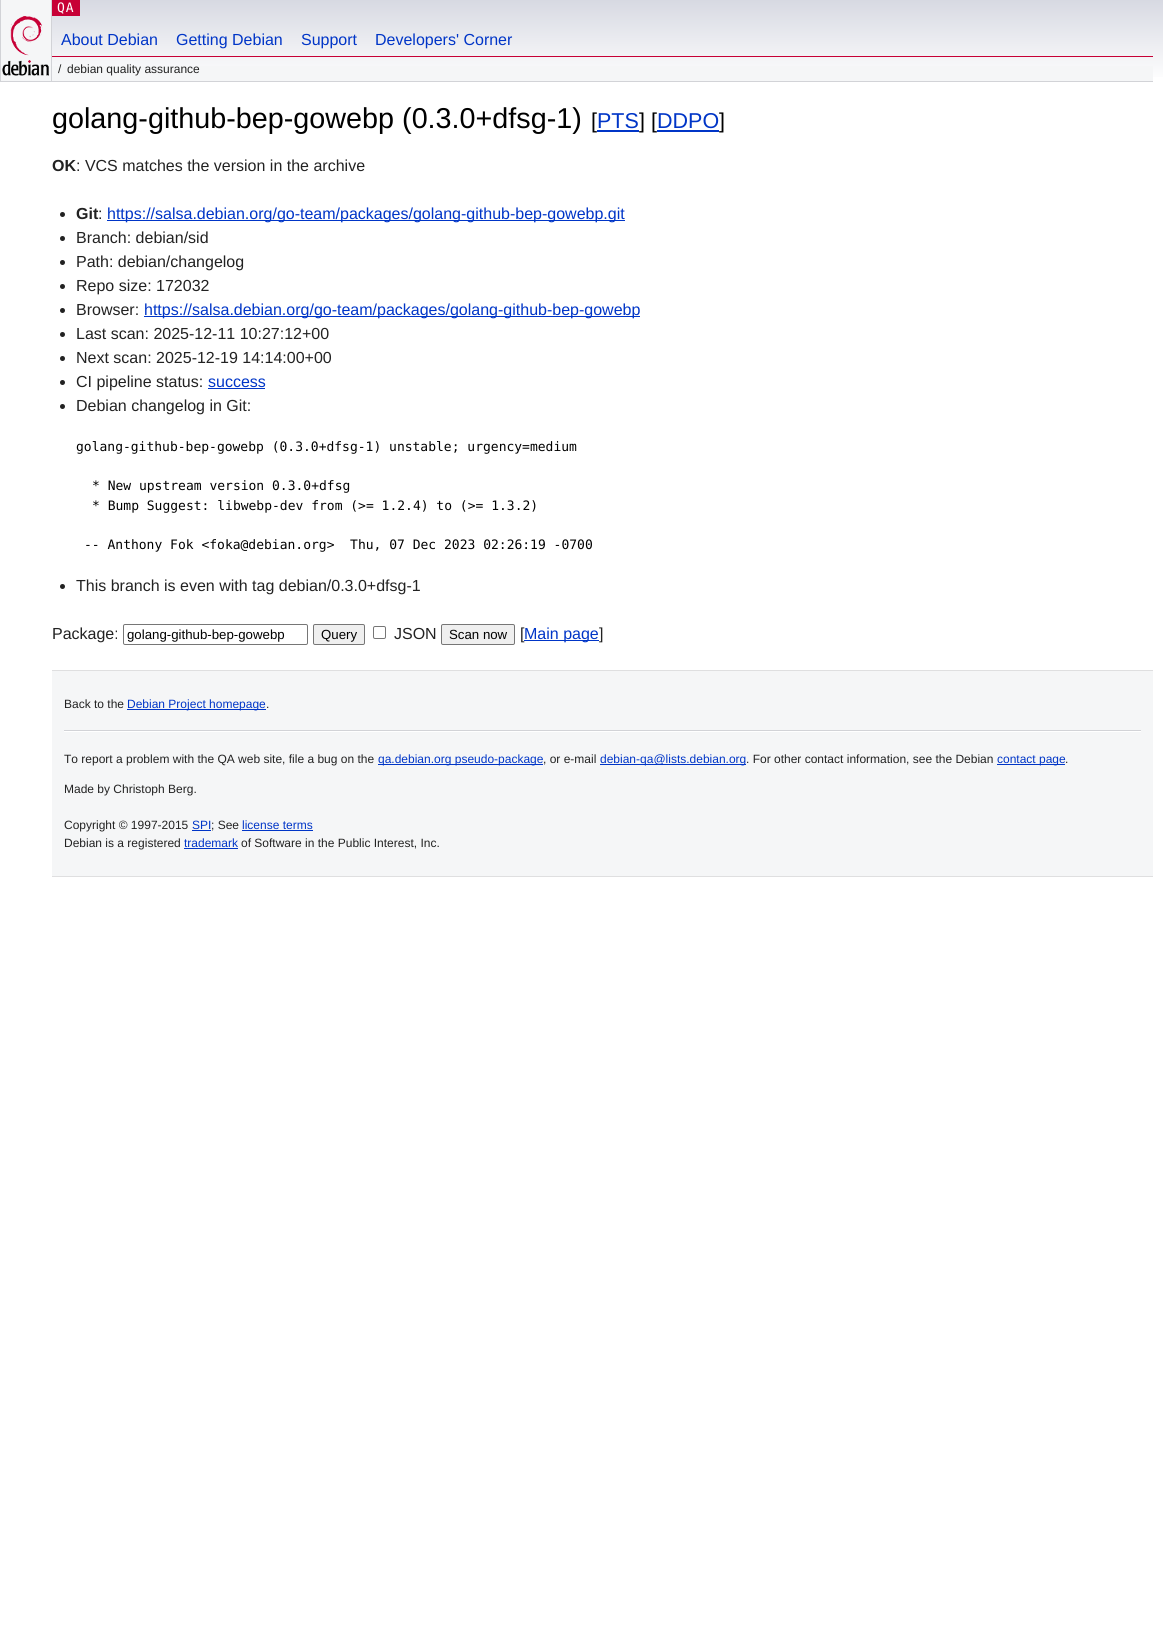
import math
import cairo

surface = cairo.ImageSurface(cairo.FORMAT_RGB24, 1163, 1639)
cr = cairo.Context(surface)
options = cairo.FontOptions()
options.set_hint_metrics(cairo.HINT_METRICS_OFF)
options.set_hint_style(cairo.HINT_STYLE_NONE)
cr.set_font_options(options)
cr.set_miter_limit(4)


def rgb(code):
    cr.set_source_rgb(*(v / 255 for v in bytes.fromhex(code[-6:])))


def tracked(x, y, s, letter, word):
    cr.move_to(x, y)
    for ch in s:
        cr.show_text(ch)
        cr.rel_move_to(letter + word * (ch == ' '), 0)


def rrect(x, y, w, h, r):
    cr.new_sub_path()
    for i, (u, v) in enumerate([(x + w - r, y + h - r), (x + r, y + h - r), (x + r, y + r), (x + w - r, y + r)]):
        cr.arc(u, v, r, i * math.pi / 2, (i + 1) * math.pi / 2)
    cr.close_path()


def image(path, x, y, w, h):
    cr.save()
    cr.set_source_surface(cairo.ImageSurface.create_from_png(path), x, y)
    cr.rectangle(x, y, w, h)
    cr.fill()
    cr.restore()


rgb("#ffffff")
cr.paint()
gradient = cairo.LinearGradient(582, 0, 582, 82)
gradient.add_color_stop_rgba(0, 0.843, 0.851, 0.886, 1)
gradient.add_color_stop_rgba(1, 1, 1, 1, 1)
cr.set_source(gradient)
cr.rectangle(52, 0, 1111, 77)
cr.fill()
for x, y, w, h, color in [
    (1, 0, 50, 81, "#f5f6f7"),
    (51, 0, 1, 82, "#d2d3d7"),
    (0, 81, 52, 1, "#d2d3d7"),
    (0, 0, 1, 82, "#d2d3d7"),
]:
    rgb(color)
    cr.rectangle(x, y, w, h)
    cr.fill()
image("img/1.png", 2, 16, 47, 60)
for x, y, w, h, color in [
    (52, 0, 28, 16, "#c70036"),
    (52, 56, 1101, 1, "#c70036"),
    (52, 66, 1101, 15, "#f5f6f7"),
    (52, 81, 1101, 1, "#d2d3d7"),
    (597, 130, 42, 2, "#0035c7"),
    (657, 130, 62, 2, "#0035c7"),
]:
    rgb(color)
    cr.rectangle(x, y, w, h)
    cr.fill()
rgb("#222222")
cr.arc(62.5, 214.5, 2.5, 0, 2 * math.pi)
cr.fill()
rgb("#0035c7")
cr.rectangle(107, 220, 518, 1)
cr.fill()
rgb("#222222")
cr.arc(62.5, 238.5, 2.5, 0, 2 * math.pi)
cr.fill()
cr.arc(62.5, 262.5, 2.5, 0, 2 * math.pi)
cr.fill()
cr.arc(62.5, 286.5, 2.5, 0, 2 * math.pi)
cr.fill()
cr.arc(62.5, 310.5, 2.5, 0, 2 * math.pi)
cr.fill()
rgb("#0035c7")
cr.rectangle(144, 316, 496, 1)
cr.fill()
rgb("#222222")
cr.arc(62.5, 334.5, 2.5, 0, 2 * math.pi)
cr.fill()
cr.arc(62.5, 358.5, 2.5, 0, 2 * math.pi)
cr.fill()
cr.arc(62.5, 382.5, 2.5, 0, 2 * math.pi)
cr.fill()
rgb("#0035c7")
cr.rectangle(208, 388, 57, 1)
cr.fill()
rgb("#222222")
cr.arc(62.5, 406.5, 2.5, 0, 2 * math.pi)
cr.fill()
cr.arc(62.5, 586.5, 2.5, 0, 2 * math.pi)
cr.fill()
rrect(123.5, 624.5, 184, 20, 1.5)
rgb("#767676")
cr.set_line_width(1)
cr.stroke()
rgb("#efefef")
rrect(313.5, 624.5, 51, 20, 1.5)
cr.fill_preserve()
rgb("#767676")
cr.stroke()
rrect(373.5, 626.5, 12, 12, 1.5)
cr.stroke()
rgb("#efefef")
rrect(441.5, 624.5, 73, 20, 1.5)
cr.fill_preserve()
rgb("#767676")
cr.stroke()
for x, y, w, h, color in [
    (52, 671, 1101, 205, "#f5f6f7"),
    (52, 670, 1101, 1, "#dfdfe0"),
    (52, 876, 1101, 1, "#dfdfe0"),
    (127, 709, 139, 1, "#0035c7"),
    (64, 730, 1077, 1, "#d2d3d7"),
    (64, 731, 1077, 1, "#ffffff"),
    (378, 764, 165, 1, "#0035c7"),
    (600, 764, 146, 1, "#0035c7"),
    (997, 764, 68, 1, "#0035c7"),
    (192, 830, 19, 1, "#0035c7"),
    (242, 830, 71, 1, "#0035c7"),
    (184, 848, 54, 1, "#0035c7"),
]:
    rgb(color)
    cr.rectangle(x, y, w, h)
    cr.fill()
cr.select_font_face("DejaVu Sans Mono")
cr.set_font_size(13)
rgb("#ffffff")
tracked(57, 12, "QA", 1, 0)
cr.select_font_face("Liberation Sans")
cr.set_font_size(16)
rgb("#0035c7")
for x, y, s in [
    (61, 45, "About Debian"),
    (176, 45, "Getting Debian"),
    (301, 45, "Support"),
    (375, 45, "Developers' Corner"),
]:
    cr.move_to(x, y)
    cr.show_text(s)
cr.set_font_size(12)
rgb("#222222")
cr.move_to(58, 73)
cr.show_text("/")
cr.move_to(67, 73)
cr.show_text("debian quality assurance")
cr.set_font_size(28.75)
rgb("#000000")
cr.move_to(52, 128)
cr.show_text("golang-github-bep-gowebp (0.3.0+dfsg-1)")
cr.set_font_size(21.5)
cr.move_to(591, 128)
cr.show_text("[")
rgb("#0035c7")
cr.move_to(597, 128)
cr.show_text("PTS")
rgb("#000000")
cr.move_to(639, 128)
cr.show_text("] [")
rgb("#0035c7")
cr.move_to(657, 128)
cr.show_text("DDPO")
rgb("#000000")
cr.move_to(719, 128)
cr.show_text("]")
cr.select_font_face("Liberation Sans", cairo.FONT_SLANT_NORMAL, cairo.FONT_WEIGHT_BOLD)
cr.set_font_size(16)
rgb("#222222")
cr.move_to(52, 171)
cr.show_text("OK")
cr.select_font_face("Liberation Sans")
cr.move_to(76, 171)
cr.show_text(": VCS matches the version in the archive")
cr.select_font_face("Liberation Sans", cairo.FONT_SLANT_NORMAL, cairo.FONT_WEIGHT_BOLD)
cr.move_to(76, 219)
cr.show_text("Git")
cr.select_font_face("Liberation Sans")
cr.move_to(98, 219)
cr.show_text(":")
rgb("#0035c7")
cr.move_to(107, 219)
cr.show_text("https://salsa.debian.org/go-team/packages/golang-github-bep-gowebp.git")
rgb("#222222")
for x, y, s in [
    (76, 243, "Branch: debian/sid"),
    (76, 267, "Path: debian/changelog"),
    (76, 291, "Repo size: 172032"),
    (76, 315, "Browser:"),
]:
    cr.move_to(x, y)
    cr.show_text(s)
rgb("#0035c7")
cr.move_to(144, 315)
cr.show_text("https://salsa.debian.org/go-team/packages/golang-github-bep-gowebp")
rgb("#222222")
for x, y, s in [
    (76, 339, "Last scan: 2025-12-11 10:27:12+00"),
    (76, 363, "Next scan: 2025-12-19 14:14:00+00"),
    (76, 387, "CI pipeline status:"),
]:
    cr.move_to(x, y)
    cr.show_text(s)
rgb("#0035c7")
cr.move_to(208, 387)
cr.show_text("success")
rgb("#222222")
cr.move_to(76, 411)
cr.show_text("Debian changelog in Git:")
cr.select_font_face("DejaVu Sans Mono")
cr.set_font_size(13)
rgb("#000000")
for x, y, s in [
    (76, 451, "golang-github-bep-gowebp (0.3.0+dfsg-1) unstable; urgency=medium"),
    (92, 490, "* New upstream version 0.3.0+dfsg"),
    (92, 510, "* Bump Suggest: libwebp-dev from (>= 1.2.4) to (>= 1.3.2)"),
    (84, 549, "-- Anthony Fok <foka@debian.org>  Thu, 07 Dec 2023 02:26:19 -0700"),
]:
    cr.move_to(x, y)
    cr.show_text(s)
cr.select_font_face("Liberation Sans")
cr.set_font_size(16)
rgb("#222222")
cr.move_to(76, 591)
cr.show_text("This branch is even with tag debian/0.3.0+dfsg-1")
cr.move_to(52, 639)
cr.show_text("Package:")
cr.set_font_size(13.25)
rgb("#000000")
cr.move_to(127, 639)
cr.show_text("golang-github-bep-gowebp")
cr.move_to(321, 639)
cr.show_text("Query")
cr.set_font_size(16)
rgb("#222222")
cr.move_to(394, 639)
cr.show_text("JSON")
cr.set_font_size(13.25)
rgb("#000000")
cr.move_to(449, 639)
cr.show_text("Scan now")
cr.set_font_size(16)
rgb("#222222")
cr.move_to(520, 639)
cr.show_text("[")
rgb("#0035c7")
cr.rectangle(524, 640, 75, 1)
cr.fill()
cr.move_to(524, 639)
cr.show_text("Main page")
rgb("#222222")
cr.move_to(599, 639)
cr.show_text("]")
cr.set_font_size(12)
cr.move_to(64, 708)
cr.show_text("Back to the")
rgb("#0035c7")
cr.move_to(127, 708)
cr.show_text("Debian Project homepage")
rgb("#222222")
cr.move_to(266, 708)
cr.show_text(".")
cr.move_to(64, 763)
cr.show_text("To report a problem with the QA web site, file a bug on the")
rgb("#0035c7")
cr.move_to(378, 763)
cr.show_text("qa.debian.org pseudo-package")
rgb("#222222")
cr.move_to(543, 763)
cr.show_text(", or e-mail")
rgb("#0035c7")
cr.move_to(600, 763)
cr.show_text("debian-qa@lists.debian.org")
rgb("#222222")
cr.move_to(746, 763)
cr.show_text(". For other contact information, see the Debian")
rgb("#0035c7")
cr.move_to(997, 763)
cr.show_text("contact page")
rgb("#222222")
for x, y, s in [
    (1065, 763, "."),
    (64, 793, "Made by Christoph Berg."),
    (64, 829, "Copyright © 1997-2015"),
]:
    cr.move_to(x, y)
    cr.show_text(s)
rgb("#0035c7")
cr.move_to(192, 829)
cr.show_text("SPI")
rgb("#222222")
cr.move_to(211, 829)
cr.show_text("; See")
rgb("#0035c7")
cr.move_to(242, 829)
cr.show_text("license terms")
rgb("#222222")
cr.move_to(64, 847)
cr.show_text("Debian is a registered")
rgb("#0035c7")
cr.move_to(184, 847)
cr.show_text("trademark")
rgb("#222222")
cr.move_to(241, 847)
cr.show_text("of Software in the Public Interest, Inc.")
surface.write_to_png("page.png")
